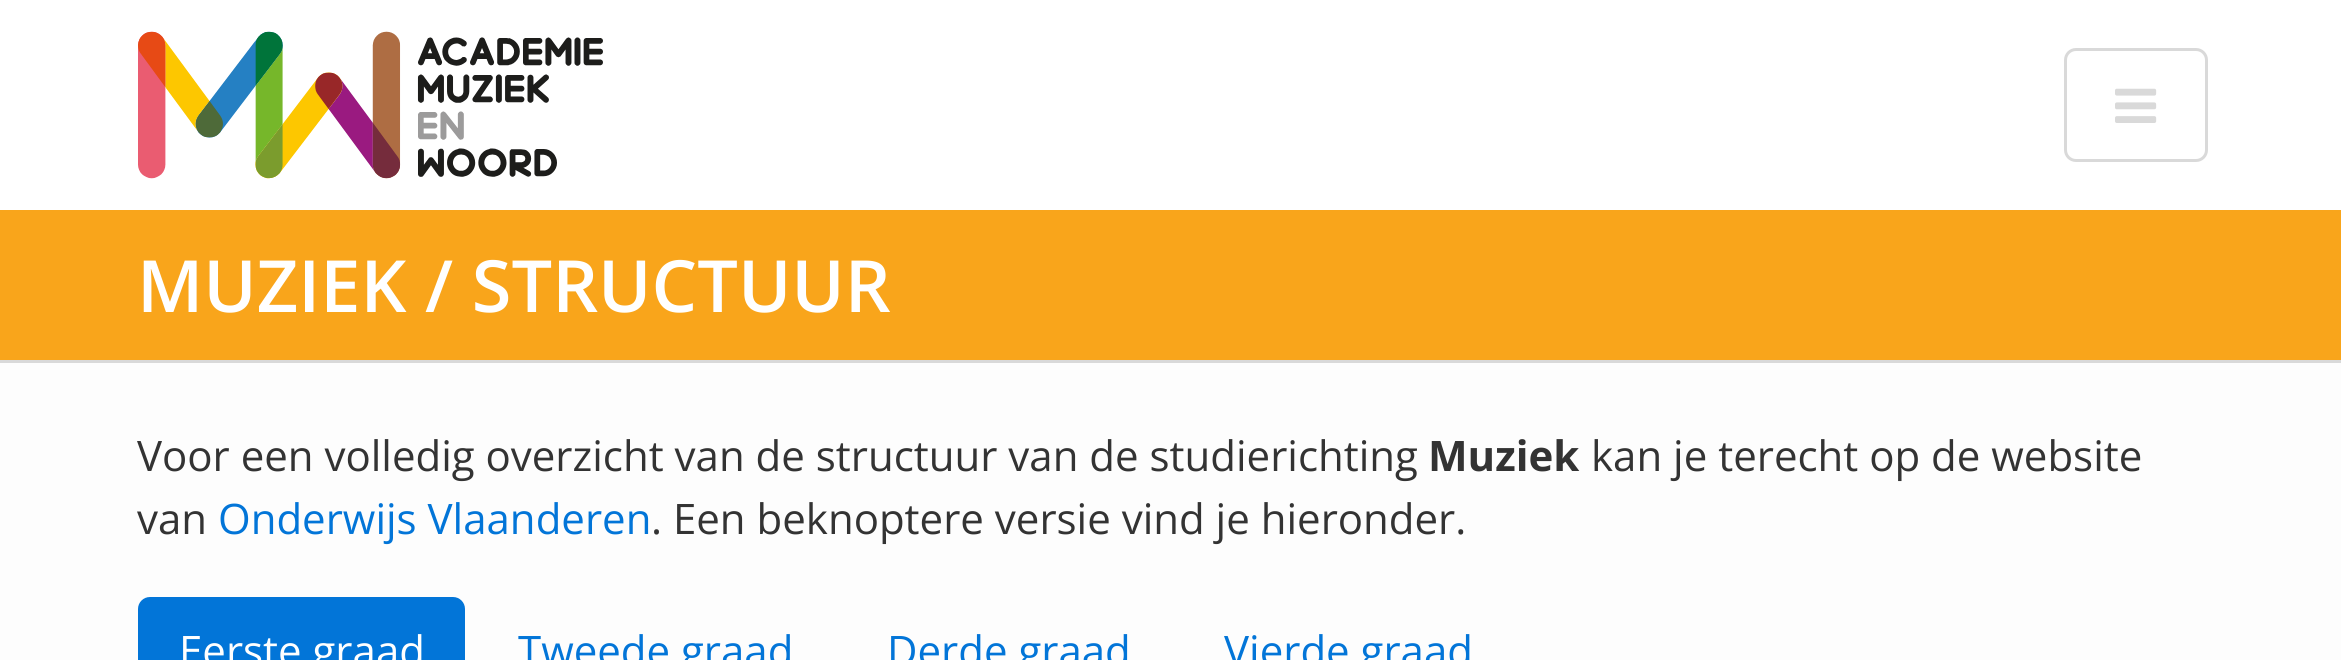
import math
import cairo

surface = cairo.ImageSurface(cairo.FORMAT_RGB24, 2341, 660)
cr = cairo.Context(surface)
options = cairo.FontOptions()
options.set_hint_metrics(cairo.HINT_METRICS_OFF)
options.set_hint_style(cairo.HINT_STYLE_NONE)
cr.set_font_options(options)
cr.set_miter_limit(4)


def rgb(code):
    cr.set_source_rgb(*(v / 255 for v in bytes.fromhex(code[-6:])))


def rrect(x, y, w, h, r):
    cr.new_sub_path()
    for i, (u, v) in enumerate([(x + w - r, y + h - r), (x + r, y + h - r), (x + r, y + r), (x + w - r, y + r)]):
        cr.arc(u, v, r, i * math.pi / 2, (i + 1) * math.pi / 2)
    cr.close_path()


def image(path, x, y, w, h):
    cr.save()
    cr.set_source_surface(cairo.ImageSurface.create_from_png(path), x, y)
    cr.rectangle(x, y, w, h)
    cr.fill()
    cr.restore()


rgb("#f9a51b")
cr.paint()
rgb("#ffffff")
cr.rectangle(0, 0, 2341, 210)
cr.fill()
image("img/1.png", 138, 31, 465, 148)
rrect(2065.5, 49.5, 141, 111, 10.5)
rgb("#d9d9d9")
cr.set_line_width(3)
cr.stroke()
image("img/2.png", 2115, 88, 42, 35)
cr.rectangle(0, 360, 2341, 3)
cr.fill()
rgb("#fdfdfd")
cr.rectangle(0, 363, 2341, 297)
cr.fill()
rgb("#0275d8")
rrect(138, 597, 327, 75, 12)
cr.fill()
cr.select_font_face("Open Sans SemiBold")
cr.set_font_size(72)
rgb("#ffffff")
cr.move_to(137, 312)
cr.show_text("MUZIEK / STRUCTUUR")
cr.select_font_face("Open Sans")
cr.set_font_size(42)
rgb("#333333")
cr.move_to(137, 471)
cr.show_text("Voor een volledig overzicht van de structuur van de studierichting")
cr.select_font_face("Open Sans", cairo.FONT_SLANT_NORMAL, cairo.FONT_WEIGHT_BOLD)
cr.move_to(1428, 471)
cr.show_text("Muziek")
cr.select_font_face("Open Sans")
cr.move_to(1591, 471)
cr.show_text("kan je terecht op de website")
cr.move_to(137, 534)
cr.show_text("van")
rgb("#0275d8")
cr.move_to(218, 534)
cr.show_text("Onderwijs Vlaanderen")
rgb("#333333")
cr.move_to(651, 534)
cr.show_text(". Een beknoptere versie vind je hieronder.")
rgb("#ffffff")
cr.move_to(179, 666)
cr.show_text("Eerste graad")
rgb("#0275d8")
for x, y, s in [
    (518, 666, "Tweede graad"),
    (887, 666, "Derde graad"),
    (1224, 666, "Vierde graad"),
]:
    cr.move_to(x, y)
    cr.show_text(s)
surface.write_to_png("page.png")
